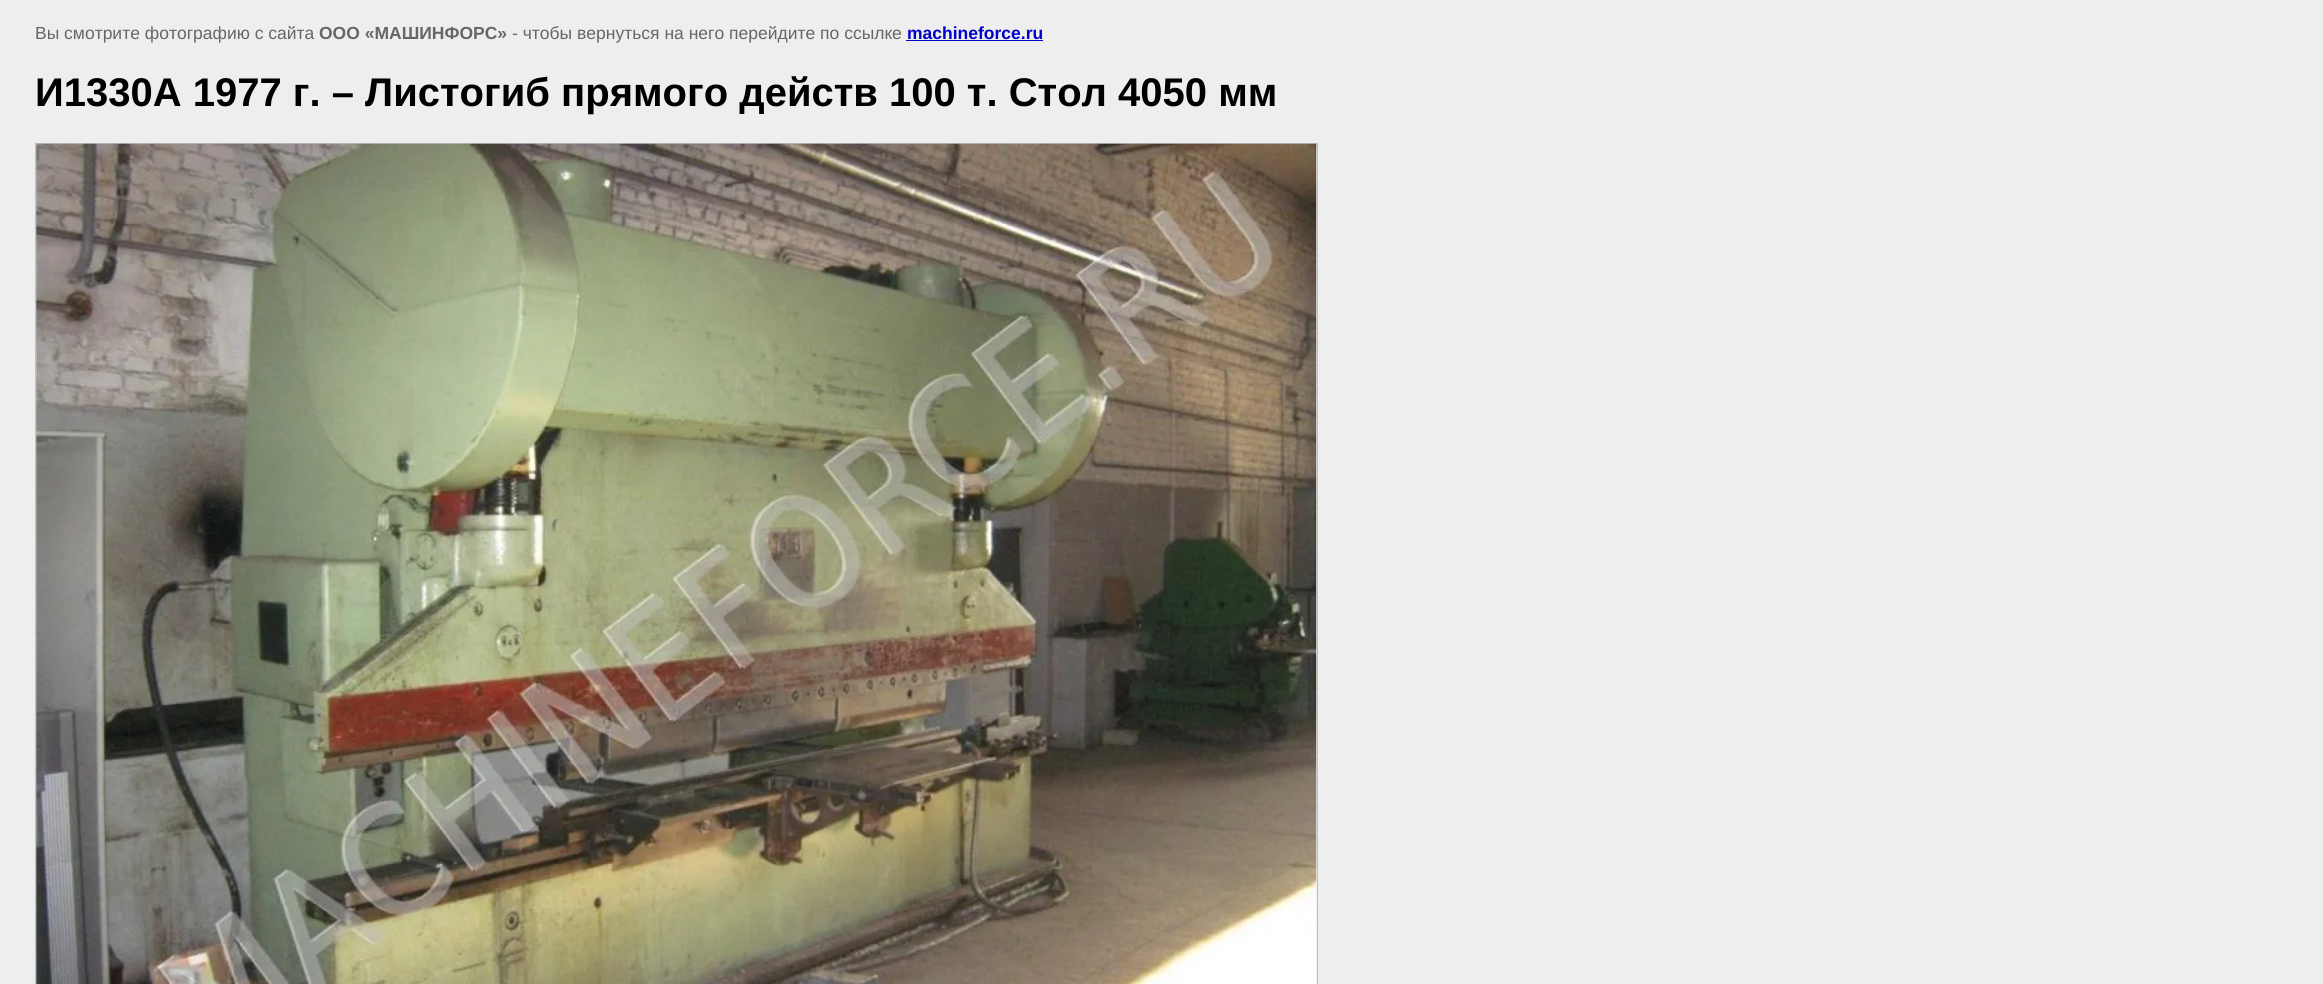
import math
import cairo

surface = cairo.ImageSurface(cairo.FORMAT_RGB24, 2323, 984)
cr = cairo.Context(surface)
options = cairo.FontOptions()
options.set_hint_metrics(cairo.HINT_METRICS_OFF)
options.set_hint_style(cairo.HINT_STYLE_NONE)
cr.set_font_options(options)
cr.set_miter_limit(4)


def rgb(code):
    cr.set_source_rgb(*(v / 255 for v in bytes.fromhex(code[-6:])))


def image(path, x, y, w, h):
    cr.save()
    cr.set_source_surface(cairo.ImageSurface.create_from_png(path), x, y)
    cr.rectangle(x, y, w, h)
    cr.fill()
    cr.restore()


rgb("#eeeeee")
cr.paint()
rgb("#0000cc")
cr.rectangle(906, 40, 137, 1)
cr.fill()
cr.rectangle(35.5, 143.5, 1282, 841)
rgb("#c0c0c0")
cr.set_line_width(1)
cr.stroke()
image("img/1.png", 36, 143, 1281, 841)
cr.select_font_face("Liberation Sans")
cr.set_font_size(17.5)
rgb("#666666")
cr.move_to(35, 39)
cr.show_text("Вы смотрите фотографию с сайта")
cr.select_font_face("Liberation Sans", cairo.FONT_SLANT_NORMAL, cairo.FONT_WEIGHT_BOLD)
cr.move_to(319, 39)
cr.show_text("ООО «МАШИНФОРС»")
cr.select_font_face("Liberation Sans")
cr.move_to(512, 39)
cr.show_text("- чтобы вернуться на него перейдите по ссылке")
cr.select_font_face("Liberation Sans", cairo.FONT_SLANT_NORMAL, cairo.FONT_WEIGHT_BOLD)
rgb("#0000cc")
cr.move_to(907, 39)
cr.show_text("machineforce.ru")
cr.set_font_size(40)
rgb("#000000")
cr.move_to(35, 106)
cr.show_text("И1330А 1977 г. – Листогиб прямого действ 100 т. Стол 4050 мм")
surface.write_to_png("page.png")
